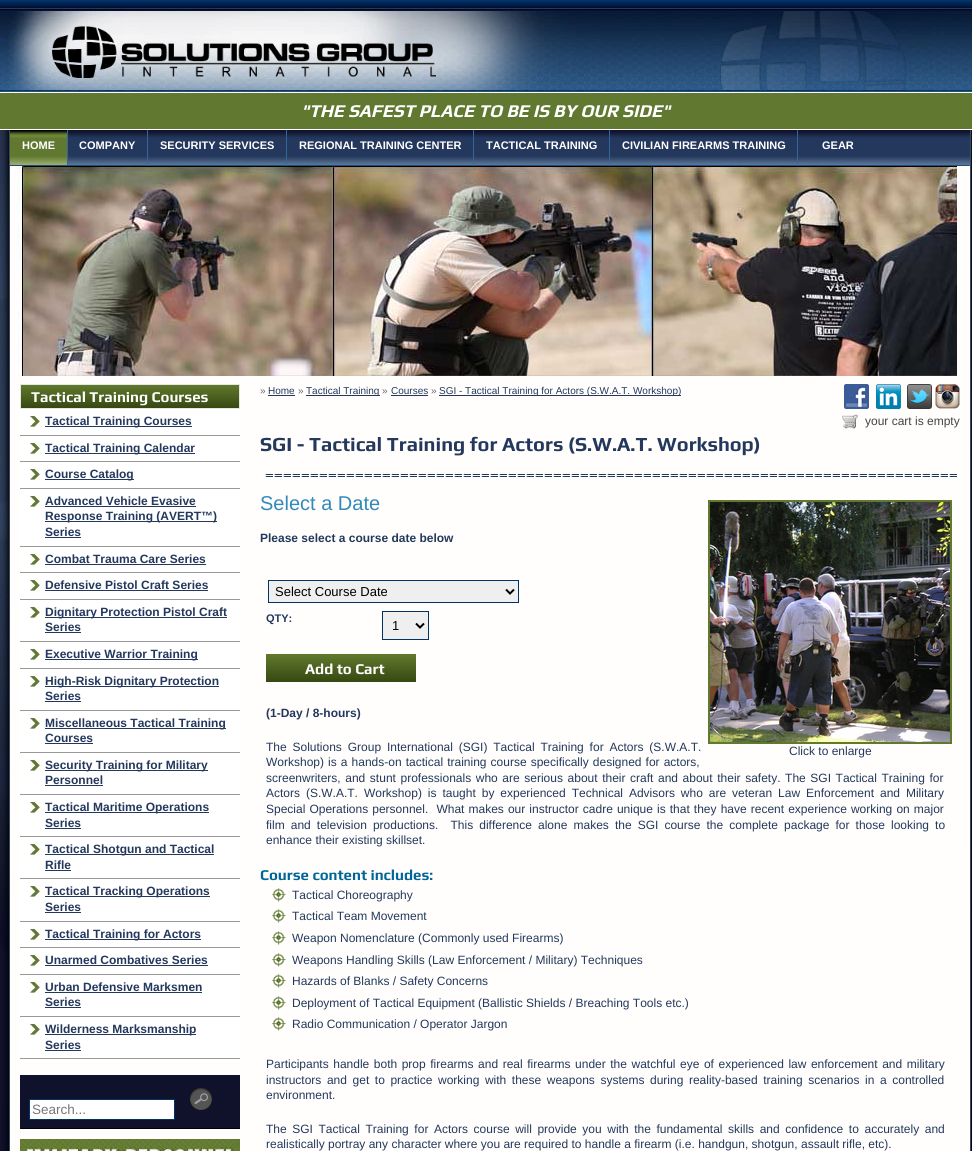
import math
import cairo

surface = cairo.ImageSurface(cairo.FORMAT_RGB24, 972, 1151)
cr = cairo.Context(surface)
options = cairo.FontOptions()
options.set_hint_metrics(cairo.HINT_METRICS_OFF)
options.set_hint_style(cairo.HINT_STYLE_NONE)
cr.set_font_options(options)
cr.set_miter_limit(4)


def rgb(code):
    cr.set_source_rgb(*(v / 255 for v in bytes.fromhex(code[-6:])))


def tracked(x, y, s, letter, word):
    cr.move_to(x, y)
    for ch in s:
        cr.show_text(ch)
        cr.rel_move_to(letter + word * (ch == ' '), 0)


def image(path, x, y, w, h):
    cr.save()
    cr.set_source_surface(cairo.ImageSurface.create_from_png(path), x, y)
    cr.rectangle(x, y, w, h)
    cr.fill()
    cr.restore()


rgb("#10112a")
cr.paint()
image("img/1.png", 0, 130, 972, 972)
image("img/2.png", 0, 0, 972, 11)
image("img/3.png", 0, 11, 972, 81)
image("img/4.png", 52, 26, 384, 52)
for x, y, w, h, color in [
    (0, 93, 972, 36, "#607830"),
    (0, 92, 972, 1, "#ffffff"),
    (0, 129, 972, 1, "#ffffff"),
]:
    rgb(color)
    cr.rectangle(x, y, w, h)
    cr.fill()
image("img/5.png", 2, 130, 970, 1021)
image("img/6.png", 68, 130, 902, 36)
rgb("#336699")
cr.rectangle(67, 130, 1, 36)
cr.fill()
image("img/7.png", 10, 130, 57, 36)
for x, y, w, h, color in [
    (147, 130, 1, 36, "#336699"),
    (286, 130, 1, 36, "#336699"),
    (473, 130, 1, 36, "#336699"),
    (609, 130, 1, 36, "#336699"),
    (797, 130, 1, 36, "#336699"),
]:
    rgb(color)
    cr.rectangle(x, y, w, h)
    cr.fill()
image("img/8.png", 17, 166, 940, 210)
gradient = cairo.LinearGradient(130, 385, 130, 408)
gradient.add_color_stop_rgba(0, 0.38, 0.475, 0.176, 1)
gradient.add_color_stop_rgba(1, 0.212, 0.282, 0.071, 1)
cr.set_source(gradient)
cr.rectangle(21, 385, 218, 23)
cr.fill()
cr.rectangle(20.5, 384.5, 219, 24)
rgb("#e6e6e6")
cr.set_line_width(1)
cr.stroke()
rgb("#ffffff")
cr.rectangle(20, 409, 220, 26)
cr.fill()
image("img/9.png", 30, 415, 11, 13)
for x, y, w, h, color in [
    (20, 435, 220, 1, "#999999"),
    (45, 426, 147, 1, "#23385c"),
    (20, 436, 220, 25, "#ffffff"),
]:
    rgb(color)
    cr.rectangle(x, y, w, h)
    cr.fill()
image("img/9.png", 30, 442, 11, 13)
for x, y, w, h, color in [
    (20, 461, 220, 1, "#999999"),
    (45, 453, 150, 1, "#23385c"),
    (20, 462, 220, 26, "#ffffff"),
]:
    rgb(color)
    cr.rectangle(x, y, w, h)
    cr.fill()
image("img/9.png", 30, 468, 11, 13)
for x, y, w, h, color in [
    (20, 488, 220, 1, "#999999"),
    (45, 479, 89, 1, "#23385c"),
    (20, 489, 220, 57, "#ffffff"),
]:
    rgb(color)
    cr.rectangle(x, y, w, h)
    cr.fill()
image("img/9.png", 30, 495, 11, 13)
for x, y, w, h, color in [
    (20, 546, 220, 1, "#999999"),
    (45, 506, 151, 1, "#23385c"),
    (45, 521, 172, 1, "#23385c"),
    (45, 537, 36, 1, "#23385c"),
    (20, 547, 220, 25, "#ffffff"),
]:
    rgb(color)
    cr.rectangle(x, y, w, h)
    cr.fill()
image("img/9.png", 30, 553, 11, 13)
for x, y, w, h, color in [
    (20, 572, 220, 1, "#999999"),
    (45, 564, 161, 1, "#23385c"),
    (20, 573, 220, 26, "#ffffff"),
]:
    rgb(color)
    cr.rectangle(x, y, w, h)
    cr.fill()
image("img/9.png", 30, 579, 11, 13)
for x, y, w, h, color in [
    (20, 599, 220, 1, "#999999"),
    (45, 590, 163, 1, "#23385c"),
    (20, 600, 220, 41, "#ffffff"),
]:
    rgb(color)
    cr.rectangle(x, y, w, h)
    cr.fill()
image("img/9.png", 30, 606, 11, 13)
for x, y, w, h, color in [
    (20, 641, 220, 1, "#999999"),
    (45, 617, 182, 1, "#23385c"),
    (45, 632, 36, 1, "#23385c"),
    (20, 642, 220, 26, "#ffffff"),
]:
    rgb(color)
    cr.rectangle(x, y, w, h)
    cr.fill()
image("img/9.png", 30, 648, 11, 13)
for x, y, w, h, color in [
    (20, 668, 220, 1, "#999999"),
    (45, 659, 153, 1, "#23385c"),
    (20, 669, 220, 41, "#ffffff"),
]:
    rgb(color)
    cr.rectangle(x, y, w, h)
    cr.fill()
image("img/9.png", 30, 675, 11, 13)
for x, y, w, h, color in [
    (20, 710, 220, 1, "#999999"),
    (45, 686, 174, 1, "#23385c"),
    (45, 701, 36, 1, "#23385c"),
    (20, 711, 220, 41, "#ffffff"),
]:
    rgb(color)
    cr.rectangle(x, y, w, h)
    cr.fill()
image("img/9.png", 30, 717, 11, 13)
for x, y, w, h, color in [
    (20, 752, 220, 1, "#999999"),
    (45, 728, 181, 1, "#23385c"),
    (45, 743, 48, 1, "#23385c"),
    (20, 753, 220, 41, "#ffffff"),
]:
    rgb(color)
    cr.rectangle(x, y, w, h)
    cr.fill()
image("img/9.png", 30, 759, 11, 13)
for x, y, w, h, color in [
    (20, 794, 220, 1, "#999999"),
    (45, 770, 163, 1, "#23385c"),
    (45, 785, 58, 1, "#23385c"),
    (20, 795, 220, 41, "#ffffff"),
]:
    rgb(color)
    cr.rectangle(x, y, w, h)
    cr.fill()
image("img/9.png", 30, 801, 11, 13)
for x, y, w, h, color in [
    (20, 836, 220, 1, "#999999"),
    (45, 812, 164, 1, "#23385c"),
    (45, 828, 36, 1, "#23385c"),
    (20, 837, 220, 41, "#ffffff"),
]:
    rgb(color)
    cr.rectangle(x, y, w, h)
    cr.fill()
image("img/9.png", 30, 843, 11, 13)
for x, y, w, h, color in [
    (20, 878, 220, 1, "#999999"),
    (45, 854, 169, 1, "#23385c"),
    (45, 870, 26, 1, "#23385c"),
    (20, 879, 220, 42, "#ffffff"),
]:
    rgb(color)
    cr.rectangle(x, y, w, h)
    cr.fill()
image("img/9.png", 30, 885, 11, 13)
for x, y, w, h, color in [
    (20, 921, 220, 1, "#999999"),
    (45, 896, 165, 1, "#23385c"),
    (45, 912, 36, 1, "#23385c"),
    (20, 922, 220, 25, "#ffffff"),
]:
    rgb(color)
    cr.rectangle(x, y, w, h)
    cr.fill()
image("img/9.png", 30, 928, 11, 13)
for x, y, w, h, color in [
    (20, 947, 220, 1, "#999999"),
    (45, 939, 156, 1, "#23385c"),
    (20, 948, 220, 26, "#ffffff"),
]:
    rgb(color)
    cr.rectangle(x, y, w, h)
    cr.fill()
image("img/9.png", 30, 954, 11, 13)
for x, y, w, h, color in [
    (20, 974, 220, 1, "#999999"),
    (45, 965, 163, 1, "#23385c"),
    (20, 975, 220, 41, "#ffffff"),
]:
    rgb(color)
    cr.rectangle(x, y, w, h)
    cr.fill()
image("img/9.png", 30, 981, 11, 13)
for x, y, w, h, color in [
    (20, 1016, 220, 1, "#999999"),
    (45, 992, 157, 1, "#23385c"),
    (45, 1007, 36, 1, "#23385c"),
    (20, 1017, 220, 41, "#ffffff"),
]:
    rgb(color)
    cr.rectangle(x, y, w, h)
    cr.fill()
image("img/9.png", 30, 1023, 11, 13)
for x, y, w, h, color in [
    (20, 1058, 220, 1, "#999999"),
    (45, 1034, 151, 1, "#23385c"),
    (45, 1050, 36, 1, "#23385c"),
    (21, 1075, 219, 53, "#10112a"),
    (20, 1128, 220, 1, "#000000"),
    (20, 1075, 1, 54, "#10112a"),
]:
    rgb(color)
    cr.rectangle(x, y, w, h)
    cr.fill()
rgb("#ffffff")
cr.rectangle(29.5, 1099.5, 145, 20)
cr.fill_preserve()
rgb("#003366")
cr.stroke()
image("img/10.png", 190, 1088, 22, 22)
image("img/11.png", 20, 1139, 220, 12)
for x, y, w, h, color in [
    (268, 395, 27, 1, "#23385c"),
    (306, 395, 74, 1, "#23385c"),
    (391, 395, 37, 1, "#23385c"),
    (439, 395, 242, 1, "#23385c"),
]:
    rgb(color)
    cr.rectangle(x, y, w, h)
    cr.fill()
image("img/12.png", 844, 384, 25, 25)
image("img/13.png", 876, 384, 25, 25)
image("img/14.png", 907, 384, 25, 25)
image("img/15.png", 935, 384, 25, 25)
image("img/16.png", 842, 414, 16, 15)
image("img/17.png", 264, 471, 693, 8)
rgb("#efefef")
cr.rectangle(268.5, 580.5, 250, 22)
cr.fill_preserve()
rgb("#003366")
cr.stroke()
cr.new_path()
cr.move_to(506, 589.5)
cr.line_to(510, 593.5)
cr.line_to(514, 589.5)
rgb("#000000")
cr.set_line_width(2)
cr.stroke()
rgb("#efefef")
cr.rectangle(382.5, 611.5, 46, 28)
cr.fill_preserve()
rgb("#003366")
cr.set_line_width(1)
cr.stroke()
cr.new_path()
cr.move_to(416, 623.5)
cr.line_to(420, 627.5)
cr.line_to(424, 623.5)
rgb("#000000")
cr.set_line_width(2)
cr.stroke()
gradient = cairo.LinearGradient(341, 654, 341, 682)
gradient.add_color_stop_rgba(0, 0.38, 0.475, 0.176, 1)
gradient.add_color_stop_rgba(1, 0.212, 0.282, 0.071, 1)
cr.set_source(gradient)
cr.rectangle(266, 654, 150, 28)
cr.fill()
image("img/18.png", 272, 888, 14, 14)
image("img/18.png", 272, 909, 14, 14)
image("img/18.png", 272, 931, 14, 14)
image("img/18.png", 272, 953, 14, 14)
image("img/18.png", 272, 974, 14, 14)
image("img/18.png", 272, 996, 14, 14)
image("img/18.png", 272, 1017, 14, 14)
cr.rectangle(709, 501, 242, 242)
rgb("#61792d")
cr.stroke()
image("img/19.png", 710, 502, 240, 240)
cr.select_font_face("Play", cairo.FONT_SLANT_ITALIC, cairo.FONT_WEIGHT_BOLD)
cr.set_font_size(18)
rgb("#ffffff")
cr.move_to(301, 117)
cr.show_text("\"THE SAFEST PLACE TO BE IS BY OUR SIDE\"")
cr.select_font_face("Liberation Sans", cairo.FONT_SLANT_NORMAL, cairo.FONT_WEIGHT_BOLD)
cr.set_font_size(11)
for x, y, s in [
    (22, 149, "HOME"),
    (79, 149, "COMPANY"),
    (160, 149, "SECURITY SERVICES"),
    (299, 149, "REGIONAL TRAINING CENTER"),
    (486, 149, "TACTICAL TRAINING"),
    (622, 149, "CIVILIAN FIREARMS TRAINING"),
    (822, 149, "GEAR"),
]:
    cr.move_to(x, y)
    cr.show_text(s)
cr.select_font_face("Play", cairo.FONT_SLANT_NORMAL, cairo.FONT_WEIGHT_BOLD)
cr.set_font_size(15)
cr.move_to(31, 402)
cr.show_text("Tactical Training Courses")
cr.select_font_face("Liberation Sans", cairo.FONT_SLANT_NORMAL, cairo.FONT_WEIGHT_BOLD)
cr.set_font_size(12)
rgb("#23385c")
for x, y, s in [
    (45, 425, "Tactical Training Courses"),
    (45, 452, "Tactical Training Calendar"),
    (45, 478, "Course Catalog"),
    (45, 505, "Advanced Vehicle Evasive"),
    (45, 520, "Response Training (AVERT™)"),
    (45, 536, "Series"),
    (45, 563, "Combat Trauma Care Series"),
    (45, 589, "Defensive Pistol Craft Series"),
    (45, 616, "Dignitary Protection Pistol Craft"),
    (45, 631, "Series"),
    (45, 658, "Executive Warrior Training"),
    (45, 685, "High-Risk Dignitary Protection"),
    (45, 700, "Series"),
    (45, 727, "Miscellaneous Tactical Training"),
    (45, 742, "Courses"),
    (45, 769, "Security Training for Military"),
    (45, 784, "Personnel"),
    (45, 811, "Tactical Maritime Operations"),
    (45, 827, "Series"),
    (45, 853, "Tactical Shotgun and Tactical"),
    (45, 869, "Rifle"),
    (45, 895, "Tactical Tracking Operations"),
    (45, 911, "Series"),
    (45, 938, "Tactical Training for Actors"),
    (45, 964, "Unarmed Combatives Series"),
    (45, 991, "Urban Defensive Marksmen"),
    (45, 1006, "Series"),
    (45, 1033, "Wilderness Marksmanship"),
    (45, 1049, "Series"),
]:
    cr.move_to(x, y)
    cr.show_text(s)
cr.select_font_face("Liberation Sans")
cr.set_font_size(13.5)
rgb("#777777")
cr.move_to(32, 1114)
cr.show_text("Search...")
cr.set_font_size(10)
rgb("#666666")
cr.move_to(260, 394)
cr.show_text("»")
rgb("#23385c")
cr.move_to(268, 394)
cr.show_text("Home")
rgb("#666666")
cr.move_to(298, 394)
cr.show_text("»")
rgb("#23385c")
cr.move_to(306, 394)
cr.show_text("Tactical Training")
rgb("#666666")
cr.move_to(382, 394)
cr.show_text("»")
rgb("#23385c")
cr.move_to(391, 394)
cr.show_text("Courses")
rgb("#666666")
cr.move_to(431, 394)
cr.show_text("»")
rgb("#23385c")
cr.move_to(439, 394)
cr.show_text("SGI - Tactical Training for Actors (S.W.A.T. Workshop)")
cr.set_font_size(12)
rgb("#444444")
cr.move_to(865, 425)
cr.show_text("your cart is empty")
cr.select_font_face("Play", cairo.FONT_SLANT_NORMAL, cairo.FONT_WEIGHT_BOLD)
cr.set_font_size(20)
rgb("#23385c")
cr.move_to(260, 451)
cr.show_text("SGI - Tactical Training for Actors (S.W.A.T. Workshop)")
cr.select_font_face("Liberation Sans")
rgb("#318ab9")
cr.move_to(260, 510)
cr.show_text("Select a Date")
cr.select_font_face("Liberation Sans", cairo.FONT_SLANT_NORMAL, cairo.FONT_WEIGHT_BOLD)
cr.set_font_size(12)
rgb("#23385c")
cr.move_to(260, 542)
cr.show_text("Please select a course date below")
cr.select_font_face("Liberation Sans")
cr.set_font_size(13)
rgb("#000000")
cr.move_to(275, 596)
cr.show_text("Select Course Date")
cr.select_font_face("Liberation Sans", cairo.FONT_SLANT_NORMAL, cairo.FONT_WEIGHT_BOLD)
cr.set_font_size(11)
rgb("#23385c")
cr.move_to(266, 622)
cr.show_text("QTY:")
cr.select_font_face("Liberation Sans")
cr.set_font_size(13)
rgb("#000000")
cr.move_to(392, 630)
cr.show_text("1")
cr.select_font_face("Play", cairo.FONT_SLANT_NORMAL, cairo.FONT_WEIGHT_BOLD)
cr.set_font_size(15)
rgb("#ffffff")
cr.move_to(305, 674)
cr.show_text("Add to Cart")
cr.select_font_face("Liberation Sans", cairo.FONT_SLANT_NORMAL, cairo.FONT_WEIGHT_BOLD)
cr.set_font_size(12)
rgb("#23385c")
cr.move_to(266, 717)
cr.show_text("(1-Day / 8-hours)")
cr.select_font_face("Liberation Sans")
tracked(266, 751, "The Solutions Group International (SGI) Tactical Training for Actors (S.W.A.T.", 0, 2.5)
tracked(266, 766, "Workshop) is a hands-on tactical training course specifically designed for actors,", 0, 0.75)
tracked(266, 782, "screenwriters, and stunt professionals who are serious about their craft and about their safety. The SGI Tactical Training for", 0, 1.25)
tracked(266, 797, "Actors (S.W.A.T. Workshop) is taught by experienced Technical Advisors who are veteran Law Enforcement and Military", 0, 2.6)
tracked(266, 813, "Special Operations personnel.  What makes our instructor cadre unique is that they have recent experience working on major", 0, 0.75)
tracked(266, 829, "film and television productions.  This difference alone makes the SGI course the complete package for those looking to", 0, 2.75)
cr.move_to(266, 844)
cr.show_text("enhance their existing skillset.")
cr.select_font_face("Play", cairo.FONT_SLANT_NORMAL, cairo.FONT_WEIGHT_BOLD)
cr.set_font_size(15)
rgb("#006699")
cr.move_to(260, 880)
cr.show_text("Course content includes:")
cr.select_font_face("Liberation Sans")
cr.set_font_size(12)
rgb("#23385c")
for x, y, s in [
    (292, 899, "Tactical Choreography"),
    (292, 920, "Tactical Team Movement"),
    (292, 942, "Weapon Nomenclature (Commonly used Firearms)"),
    (292, 964, "Weapons Handling Skills (Law Enforcement / Military) Techniques"),
    (292, 985, "Hazards of Blanks / Safety Concerns"),
    (292, 1007, "Deployment of Tactical Equipment (Ballistic Shields / Breaching Tools etc.)"),
    (292, 1028, "Radio Communication / Operator Jargon"),
]:
    cr.move_to(x, y)
    cr.show_text(s)
tracked(266, 1068, "Participants handle both prop firearms and real firearms under the watchful eye of experienced law enforcement and military", 0, 1.2)
tracked(266, 1084, "instructors and get to practice working with these weapons systems during reality-based training scenarios in a controlled", 0, 2.25)
cr.move_to(266, 1099)
cr.show_text("environment.")
tracked(266, 1133, "The SGI Tactical Training for Actors course will provide you with the fundamental skills and confidence to accurately and", 0, 2.25)
cr.move_to(266, 1148)
cr.show_text("realistically portray any character where you are required to handle a firearm (i.e. handgun, shotgun, assault rifle, etc).")
cr.move_to(789, 755)
cr.show_text("Click to enlarge")
surface.write_to_png("page.png")
